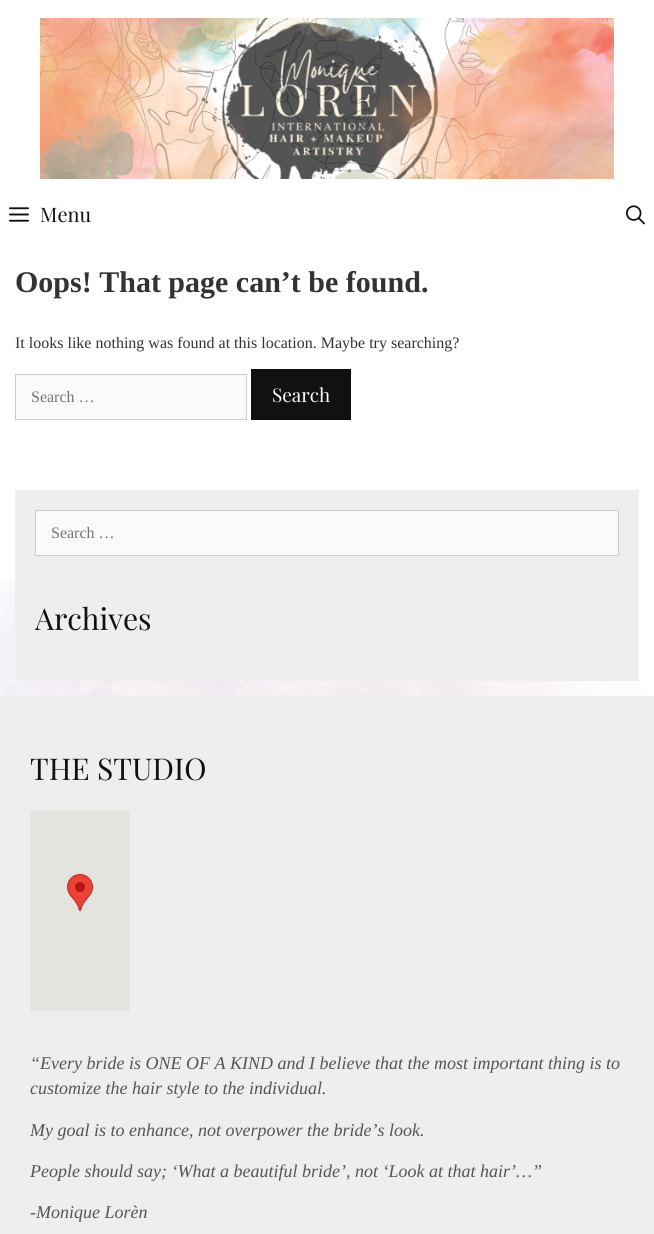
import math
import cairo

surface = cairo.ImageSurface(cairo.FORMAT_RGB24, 654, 1234)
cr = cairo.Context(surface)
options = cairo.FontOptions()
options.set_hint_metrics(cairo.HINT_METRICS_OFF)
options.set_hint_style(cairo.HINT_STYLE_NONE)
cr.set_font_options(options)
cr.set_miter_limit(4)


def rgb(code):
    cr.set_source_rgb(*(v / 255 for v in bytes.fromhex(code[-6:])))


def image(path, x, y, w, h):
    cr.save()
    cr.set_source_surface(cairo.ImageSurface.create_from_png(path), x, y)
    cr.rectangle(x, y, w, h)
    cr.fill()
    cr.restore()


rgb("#ffffff")
cr.paint()
image("img/1.png", 0, 580, 650, 116)
image("img/2.png", 40, 18, 574, 161)
image("img/3.png", 9, 207, 20, 15)
image("img/4.png", 626, 205, 19, 20)
rgb("#fafafa")
cr.rectangle(15.5, 374.5, 231, 45)
cr.fill_preserve()
rgb("#cccccc")
cr.set_line_width(1)
cr.stroke()
rgb("#111111")
cr.rectangle(251, 369, 100, 51)
cr.fill()
rgb("#eeeeee")
cr.rectangle(15, 490, 624, 191)
cr.fill()
rgb("#fafafa")
cr.rectangle(35.5, 510.5, 583, 45)
cr.fill_preserve()
rgb("#cccccc")
cr.stroke()
rgb("#eeeeee")
cr.rectangle(0, 696, 654, 538)
cr.fill()
rgb("#e5e3df")
cr.rectangle(30, 811, 100, 200)
cr.fill()
image("img/5.png", 67, 874, 26, 37)
cr.select_font_face("Playfair Display")
cr.set_font_size(20)
rgb("#111111")
cr.move_to(40, 222)
cr.show_text("Menu")
cr.select_font_face("Liberation Serif", cairo.FONT_SLANT_NORMAL, cairo.FONT_WEIGHT_BOLD)
cr.set_font_size(30)
rgb("#333333")
cr.move_to(15, 292)
cr.show_text("Oops! That page can’t be found.")
cr.select_font_face("Liberation Serif")
cr.set_font_size(16)
cr.move_to(15, 348)
cr.show_text("It looks like nothing was found at this location. Maybe try searching?")
rgb("#757575")
cr.move_to(31, 402)
cr.show_text("Search …")
cr.select_font_face("Playfair Display")
cr.set_font_size(19)
rgb("#ffffff")
cr.move_to(272, 402)
cr.show_text("Search")
cr.select_font_face("Liberation Serif")
cr.set_font_size(16)
rgb("#757575")
cr.move_to(51, 538)
cr.show_text("Search …")
cr.select_font_face("Playfair Display")
cr.set_font_size(30)
rgb("#111111")
cr.move_to(35, 630)
cr.show_text("Archives")
cr.move_to(30, 780)
cr.show_text("THE STUDIO")
cr.select_font_face("Liberation Serif", cairo.FONT_SLANT_ITALIC)
cr.set_font_size(18)
rgb("#555555")
for x, y, s in [
    (30, 1069, "“Every bride is ONE OF A KIND and I believe that the most important thing is to"),
    (30, 1094, "customize the hair style to the individual."),
    (30, 1136, "My goal is to enhance, not overpower the bride’s look."),
    (30, 1177, "People should say; ‘What a beautiful bride’, not ‘Look at that hair’…”"),
    (30, 1218, "-Monique Lorèn"),
]:
    cr.move_to(x, y)
    cr.show_text(s)
surface.write_to_png("page.png")
